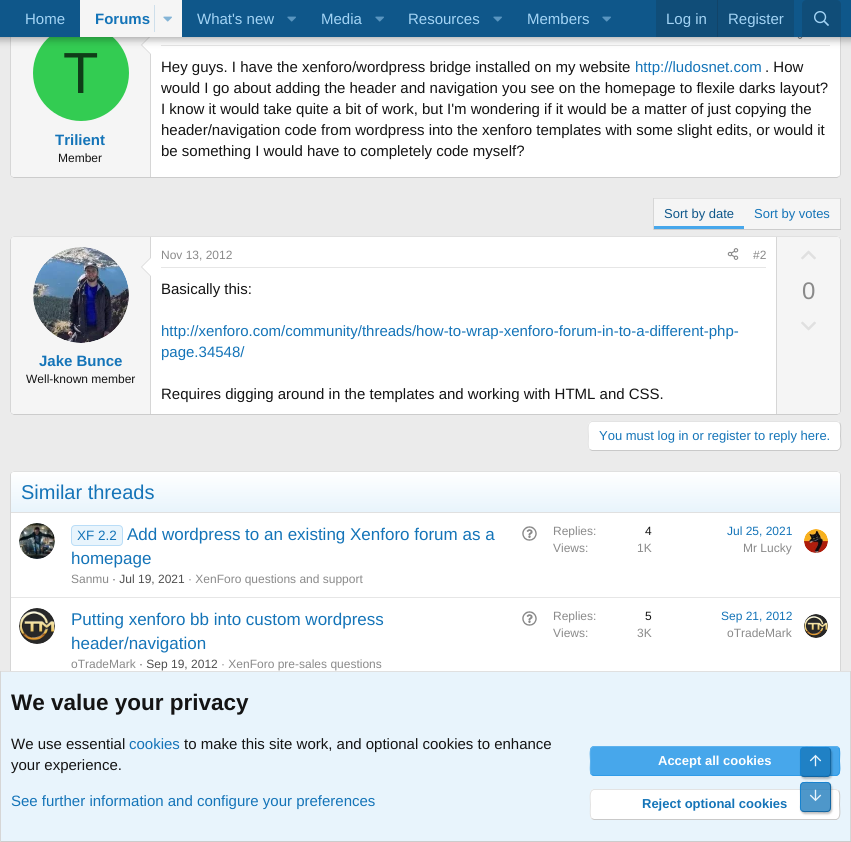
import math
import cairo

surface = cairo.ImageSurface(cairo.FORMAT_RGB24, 851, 842)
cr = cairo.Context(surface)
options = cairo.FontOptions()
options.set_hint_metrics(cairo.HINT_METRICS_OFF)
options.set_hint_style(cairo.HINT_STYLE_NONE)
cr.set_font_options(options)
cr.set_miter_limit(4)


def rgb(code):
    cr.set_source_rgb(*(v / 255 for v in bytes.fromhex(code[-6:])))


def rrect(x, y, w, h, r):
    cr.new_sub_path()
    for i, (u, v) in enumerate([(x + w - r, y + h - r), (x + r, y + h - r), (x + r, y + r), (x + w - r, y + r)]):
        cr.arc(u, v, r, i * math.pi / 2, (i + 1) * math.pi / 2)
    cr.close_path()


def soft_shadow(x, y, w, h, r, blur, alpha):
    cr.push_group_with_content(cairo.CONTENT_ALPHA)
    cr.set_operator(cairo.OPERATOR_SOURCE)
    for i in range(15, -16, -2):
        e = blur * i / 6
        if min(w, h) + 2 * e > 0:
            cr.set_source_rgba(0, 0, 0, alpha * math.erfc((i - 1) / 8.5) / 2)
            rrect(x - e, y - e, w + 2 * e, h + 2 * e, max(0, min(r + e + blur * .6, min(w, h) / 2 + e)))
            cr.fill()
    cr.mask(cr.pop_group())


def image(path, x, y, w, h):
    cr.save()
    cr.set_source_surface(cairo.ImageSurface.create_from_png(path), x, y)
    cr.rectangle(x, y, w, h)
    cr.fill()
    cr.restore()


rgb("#ebebeb")
cr.paint()
rgb("#ffffff")
rrect(10, 14, 831, 164, 4)
cr.fill()
cr.new_path()
cr.move_to(839.5, 15.5)
cr.curve_to(840, 16, 840.5, 17, 840.5, 18)
cr.line_to(840.5, 174)
cr.curve_to(840.5, 175, 840, 176, 839.5, 176.5)
rgb("#d6d6d6")
cr.set_line_width(1)
cr.stroke()
cr.new_path()
cr.move_to(839.5, 176.5)
cr.line_to(837, 177.5)
cr.line_to(14, 177.5)
cr.line_to(11.5, 176.5)
rgb("#cccccc")
cr.stroke()
cr.new_path()
cr.move_to(11.5, 176.5)
cr.curve_to(11, 176, 10.5, 175, 10.5, 174)
cr.line_to(10.5, 18)
cr.curve_to(10.5, 17, 11, 16, 11.5, 15.5)
rgb("#d6d6d6")
cr.stroke()
rgb("#f5f5f5")
cr.new_path()
cr.move_to(14, 15)
cr.line_to(151, 15)
cr.line_to(151, 177)
cr.line_to(14, 177)
cr.curve_to(12.5, 177, 11, 175.5, 11, 174)
cr.line_to(11, 18)
cr.curve_to(11, 16.5, 12.5, 15, 14, 15)
cr.close_path()
cr.fill()
rgb("#d6d6d6")
cr.rectangle(150, 54, 1, 123)
cr.fill()
cr.new_path()
cr.move_to(151, 35)
cr.line_to(151, 55)
cr.line_to(141, 45)
cr.close_path()
cr.fill()
rgb("#ffffff")
cr.new_path()
cr.move_to(151, 36)
cr.line_to(151, 54)
cr.line_to(142, 45)
cr.close_path()
cr.fill()
rgb("#33cc52")
cr.arc(81, 73, 48, 0, 2 * math.pi)
cr.fill()
rgb("#e6e6e6")
cr.rectangle(161, 45, 669, 1)
cr.fill()
image("img/4.png", 797, 37, 6, 2)
rgb("#000000")
soft_shadow(-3, -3, 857, 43, 0, 4, 0.3)
for x, y, w, h, color in [
    (0, 0, 851, 37, "#0f578a"),
    (80, 0, 102, 37, "#f5f5f5"),
    (154, 5, 1, 27, "#cedfeb"),
]:
    rgb(color)
    cr.rectangle(x, y, w, h)
    cr.fill()
image("img/1.png", 163, 16, 9, 6)
image("img/2.png", 287, 16, 9, 6)
image("img/2.png", 375, 16, 9, 6)
image("img/2.png", 493, 16, 9, 6)
image("img/2.png", 602, 16, 9, 6)
rgb("#104d78")
cr.rectangle(656, 0, 138, 37)
cr.fill()
rgb("#114469")
cr.rectangle(717, 0, 1, 37)
cr.fill()
rgb("#104d78")
cr.new_path()
cr.move_to(806, 0)
cr.line_to(837, 0)
cr.curve_to(839, 0, 841, 2, 841, 4)
cr.line_to(841, 37)
cr.line_to(802, 37)
cr.line_to(802, 4)
cr.curve_to(802, 2, 804, 0, 806, 0)
cr.close_path()
cr.fill()
image("img/3.png", 814, 11, 15, 15)
for x, y, w, h, color in [
    (654, 199, 186, 30, "#f5f5f5"),
    (653, 198, 188, 1, "#e0e0e0"),
    (840, 198, 1, 32, "#d6d6d6"),
    (653, 229, 188, 1, "#cccccc"),
    (653, 198, 1, 32, "#d6d6d6"),
    (654, 226, 90, 3, "#47a7eb"),
]:
    rgb(color)
    cr.rectangle(x, y, w, h)
    cr.fill()
rgb("#ffffff")
rrect(10, 236, 831, 179, 4)
cr.fill()
cr.new_path()
cr.move_to(11.5, 237.5)
cr.line_to(14, 236.5)
cr.line_to(837, 236.5)
cr.line_to(839.5, 237.5)
rgb("#e0e0e0")
cr.stroke()
cr.new_path()
cr.move_to(839.5, 237.5)
cr.line_to(840.5, 240)
cr.line_to(840.5, 411.5)
cr.line_to(839.5, 413.5)
rgb("#d6d6d6")
cr.stroke()
cr.new_path()
cr.move_to(839.5, 413.5)
cr.line_to(837, 414.5)
cr.line_to(14, 414.5)
cr.line_to(11.5, 413.5)
rgb("#cccccc")
cr.stroke()
cr.new_path()
cr.move_to(11.5, 413.5)
cr.line_to(10.5, 411.5)
cr.line_to(10.5, 268.5)
cr.line_to(10.5, 240)
cr.line_to(11.5, 237.5)
rgb("#d6d6d6")
cr.stroke()
rgb("#e6e6e6")
cr.rectangle(161, 267, 605, 1)
cr.fill()
image("img/5.png", 727, 248, 12, 12)
rgb("#f5f5f5")
cr.new_path()
cr.move_to(776, 237)
cr.line_to(837, 237)
cr.curve_to(838.5, 237, 840, 238.5, 840, 240)
cr.line_to(840, 411)
cr.curve_to(840, 412.5, 838.5, 414, 837, 414)
cr.line_to(776, 414)
cr.close_path()
cr.fill()
rgb("#d6d6d6")
cr.rectangle(776, 237, 1, 177)
cr.fill()
image("img/6.png", 801, 250, 15, 10)
image("img/7.png", 801, 321, 15, 10)
rgb("#f5f5f5")
cr.new_path()
cr.move_to(14, 237)
cr.line_to(151, 237)
cr.line_to(151, 414)
cr.line_to(14, 414)
cr.curve_to(12.5, 414, 11, 412.5, 11, 411)
cr.line_to(11, 240)
cr.curve_to(11, 238.5, 12.5, 237, 14, 237)
cr.close_path()
cr.fill()
rgb("#d6d6d6")
cr.rectangle(150, 237, 1, 177)
cr.fill()
rgb("#ffffff")
cr.arc(81, 295, 48, 0, 2 * math.pi)
cr.fill()
image("img/8.png", 33, 247, 96, 96)
rgb("#d6d6d6")
cr.new_path()
cr.move_to(151, 257)
cr.line_to(151, 277)
cr.line_to(141, 267)
cr.close_path()
cr.fill()
rgb("#ffffff")
cr.new_path()
cr.move_to(151, 258)
cr.line_to(151, 276)
cr.line_to(142, 267)
cr.close_path()
cr.fill()
rrect(588, 421, 253, 30, 4)
cr.fill()
cr.new_path()
cr.move_to(839.5, 422.5)
cr.curve_to(841.5, 424.5, 840.5, 433, 840.5, 436)
cr.curve_to(840.5, 439, 842, 447.5, 839, 449.5)
cr.line_to(837.5, 450.5)
cr.line_to(592, 450.5)
cr.line_to(589.5, 449.5)
rgb("#c9c9c9")
cr.stroke()
cr.new_path()
cr.move_to(589.5, 449.5)
cr.curve_to(587.5, 447.5, 588.5, 439, 588.5, 436)
cr.curve_to(588.5, 433, 587, 424.5, 590, 422.5)
cr.line_to(591.5, 421.5)
cr.line_to(837, 421.5)
cr.line_to(839.5, 422.5)
rgb("#e3e3e3")
cr.stroke()
rgb("#ffffff")
rrect(10, 471, 831, 274, 4)
cr.fill()
cr.new_path()
cr.move_to(11.5, 472.5)
cr.line_to(14, 471.5)
cr.line_to(837, 471.5)
cr.line_to(839.5, 472.5)
rgb("#e0e0e0")
cr.stroke()
cr.new_path()
cr.move_to(839.5, 472.5)
cr.curve_to(840, 473, 840.5, 474, 840.5, 475)
cr.line_to(840.5, 741)
cr.curve_to(840.5, 742, 840, 743, 839.5, 743.5)
rgb("#d6d6d6")
cr.stroke()
cr.new_path()
cr.move_to(11.5, 743.5)
cr.curve_to(11, 743, 10.5, 742, 10.5, 741)
cr.line_to(10.5, 475)
cr.curve_to(10.5, 474, 11, 473, 11.5, 472.5)
cr.stroke()
gradient = cairo.LinearGradient(426, 512, 426, 472)
gradient.add_color_stop_rgba(0, 0.91, 0.957, 0.988, 1)
gradient.add_color_stop_rgba(1, 1, 1, 1, 1)
cr.set_source(gradient)
cr.new_path()
cr.move_to(14, 472)
cr.line_to(837, 472)
cr.curve_to(838.5, 472, 840, 473.5, 840, 475)
cr.line_to(840, 512)
cr.line_to(11, 512)
cr.line_to(11, 475)
cr.curve_to(11, 473.5, 12.5, 472, 14, 472)
cr.close_path()
cr.fill()
rgb("#e0e0e0")
cr.rectangle(11, 512, 829, 1)
cr.fill()
image("img/9.png", 19, 523, 36, 36)
rgb("#e8f4fc")
rrect(71.5, 525.5, 51, 20, 3.5)
cr.fill_preserve()
rgb("#baddf7")
cr.stroke()
image("img/10.png", 522, 526, 15, 15)
image("img/11.png", 804, 529, 24, 24)
rgb("#e6e6e6")
cr.rectangle(11, 597, 829, 1)
cr.fill()
image("img/12.png", 19, 608, 36, 36)
image("img/10.png", 522, 611, 15, 15)
image("img/13.png", 804, 614, 24, 24)
for x, y, w, h, color in [
    (1, 672, 849, 169, "#e8f4fc"),
    (0, 671, 851, 1, "#e0e0e0"),
    (850, 671, 1, 171, "#d6d6d6"),
    (0, 841, 851, 1, "#cccccc"),
    (0, 671, 1, 171, "#d6d6d6"),
]:
    rgb(color)
    cr.rectangle(x, y, w, h)
    cr.fill()
rgb("#47a7eb")
rrect(590, 746, 250, 30, 4)
cr.fill()
cr.new_path()
cr.move_to(838.5, 747.5)
cr.curve_to(840.5, 749.5, 839.5, 758, 839.5, 761)
cr.curve_to(839.5, 764, 841, 772.5, 838, 774.5)
cr.line_to(836.5, 775.5)
cr.line_to(594, 775.5)
cr.line_to(591.5, 774.5)
rgb("#309ce8")
cr.stroke()
cr.new_path()
cr.move_to(591.5, 774.5)
cr.curve_to(589.5, 772.5, 590.5, 764, 590.5, 761)
cr.curve_to(590.5, 758, 589, 749.5, 592, 747.5)
cr.line_to(593.5, 746.5)
cr.line_to(836, 746.5)
cr.line_to(838.5, 747.5)
rgb("#5eb2ed")
cr.stroke()
rgb("#ffffff")
rrect(590, 789, 250, 31, 4)
cr.fill()
cr.new_path()
cr.move_to(838.5, 790.5)
cr.curve_to(840.5, 793, 839.5, 801.5, 839.5, 804.5)
cr.curve_to(839.5, 807.5, 841, 816.5, 838, 818.5)
cr.line_to(836.5, 819.5)
cr.line_to(594, 819.5)
cr.line_to(591.5, 818.5)
rgb("#c9c9c9")
cr.stroke()
cr.new_path()
cr.move_to(591.5, 818.5)
cr.curve_to(589.5, 816, 590.5, 807.5, 590.5, 804.5)
cr.curve_to(590.5, 801.5, 589, 792.5, 592, 790.5)
cr.line_to(593.5, 789.5)
cr.line_to(836, 789.5)
cr.line_to(838.5, 790.5)
rgb("#e3e3e3")
cr.stroke()
cr.save()
cr.set_fill_rule(cairo.FILL_RULE_EVEN_ODD)
cr.new_path()
cr.move_to(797, 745)
cr.line_to(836, 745)
cr.line_to(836, 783)
cr.line_to(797, 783)
cr.close_path()
cr.move_to(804, 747)
cr.line_to(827, 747)
cr.curve_to(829, 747, 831, 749, 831, 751)
cr.line_to(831, 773)
cr.curve_to(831, 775, 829, 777, 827, 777)
cr.line_to(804, 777)
cr.curve_to(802, 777, 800, 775, 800, 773)
cr.line_to(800, 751)
cr.curve_to(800, 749, 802, 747, 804, 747)
cr.close_path()
cr.clip()
rgb("#000000")
soft_shadow(801, 749, 31, 30, 4, 1, 0.25)
cr.restore()
cr.set_source_rgba(0.078, 0.455, 0.722, 0.75)
rrect(800, 747, 31, 30, 4)
cr.fill()
cr.new_path()
cr.move_to(829.5, 748.5)
cr.curve_to(831, 750, 830.5, 753, 830.5, 754.5)
cr.line_to(830.5, 762)
cr.curve_to(830.5, 779, 832.5, 776.5, 815.5, 776.5)
cr.line_to(808, 776.5)
cr.curve_to(806, 776.5, 803, 777, 801.5, 775.5)
rgb("#1265a1")
cr.stroke()
cr.new_path()
cr.move_to(801.5, 775.5)
cr.curve_to(800, 774, 800.5, 771, 800.5, 769.5)
cr.line_to(800.5, 762)
cr.curve_to(800.5, 745, 798.5, 747.5, 815.5, 747.5)
cr.line_to(823, 747.5)
cr.curve_to(825, 747.5, 828, 747, 829.5, 748.5)
rgb("#1782cf")
cr.stroke()
image("img/14.png", 809, 754, 13, 13)
cr.save()
cr.set_fill_rule(cairo.FILL_RULE_EVEN_ODD)
cr.new_path()
cr.move_to(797, 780)
cr.line_to(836, 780)
cr.line_to(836, 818)
cr.line_to(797, 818)
cr.close_path()
cr.move_to(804, 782)
cr.line_to(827, 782)
cr.curve_to(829, 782, 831, 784, 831, 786)
cr.line_to(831, 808)
cr.curve_to(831, 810, 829, 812, 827, 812)
cr.line_to(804, 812)
cr.curve_to(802, 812, 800, 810, 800, 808)
cr.line_to(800, 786)
cr.curve_to(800, 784, 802, 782, 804, 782)
cr.close_path()
cr.clip()
rgb("#000000")
soft_shadow(801, 784, 31, 30, 4, 1, 0.25)
cr.restore()
cr.set_source_rgba(0.078, 0.455, 0.722, 0.75)
rrect(800, 782, 31, 30, 4)
cr.fill()
cr.new_path()
cr.move_to(829.5, 783.5)
cr.curve_to(831, 785, 830.5, 788, 830.5, 789.5)
cr.line_to(830.5, 797)
cr.curve_to(830.5, 814, 832.5, 811.5, 815.5, 811.5)
cr.line_to(808, 811.5)
cr.curve_to(806, 811.5, 803, 812, 801.5, 810.5)
rgb("#1265a1")
cr.stroke()
cr.new_path()
cr.move_to(801.5, 810.5)
cr.curve_to(800, 809, 800.5, 806, 800.5, 804.5)
cr.line_to(800.5, 797)
cr.curve_to(800.5, 780, 798.5, 782.5, 815.5, 782.5)
cr.line_to(823, 782.5)
cr.curve_to(825, 782.5, 828, 782, 829.5, 783.5)
rgb("#1782cf")
cr.stroke()
image("img/15.png", 809, 789, 13, 13)
cr.select_font_face("Liberation Sans")
cr.set_font_size(15)
rgb("#a3d4f5")
cr.move_to(25, 24)
cr.show_text("Home")
cr.select_font_face("Liberation Sans", cairo.FONT_SLANT_NORMAL, cairo.FONT_WEIGHT_BOLD)
rgb("#1474b8")
cr.move_to(95, 24)
cr.show_text("Forums")
cr.select_font_face("Liberation Sans")
rgb("#a3d4f5")
for x, y, s in [
    (197, 24, "What's new"),
    (321, 24, "Media"),
    (408, 24, "Resources"),
    (527, 24, "Members"),
    (666, 24, "Log in"),
    (728, 24, "Register"),
]:
    cr.move_to(x, y)
    cr.show_text(s)
cr.set_font_size(58)
rgb("#0f3d18")
cr.move_to(63, 93)
cr.show_text("T")
cr.select_font_face("Liberation Sans", cairo.FONT_SLANT_NORMAL, cairo.FONT_WEIGHT_BOLD)
cr.set_font_size(15)
rgb("#1474b8")
cr.move_to(55, 145)
cr.show_text("Trilient")
cr.select_font_face("Liberation Sans")
cr.set_font_size(12)
rgb("#141414")
cr.move_to(58, 162)
cr.show_text("Member")
cr.set_font_size(15)
cr.move_to(161, 72)
cr.show_text("Hey guys. I have the xenforo/wordpress bridge installed on my website")
rgb("#1474b8")
cr.move_to(635, 72)
cr.show_text("http://ludosnet.com")
rgb("#141414")
for x, y, s in [
    (765, 72, ". How"),
    (161, 93, "would I go about adding the header and navigation you see on the homepage to flexile darks layout?"),
    (161, 114, "I know it would take quite a bit of work, but I'm wondering if it would be a matter of just copying the"),
    (161, 135, "header/navigation code from wordpress into the xenforo templates with some slight edits, or would it"),
    (161, 156, "be something I would have to completely code myself?"),
]:
    cr.move_to(x, y)
    cr.show_text(s)
cr.set_font_size(13)
rgb("#0f578a")
cr.move_to(664, 218)
cr.show_text("Sort by date")
rgb("#1474b8")
cr.move_to(754, 218)
cr.show_text("Sort by votes")
cr.set_font_size(12)
rgb("#8a8a8a")
cr.move_to(161, 259)
cr.show_text("Nov 13, 2012")
cr.move_to(753, 259)
cr.show_text("#2")
cr.set_font_size(15)
rgb("#141414")
cr.move_to(161, 294)
cr.show_text("Basically this:")
rgb("#1474b8")
cr.move_to(161, 336)
cr.show_text("http://xenforo.com/community/threads/how-to-wrap-xenforo-forum-in-to-a-different-php-")
cr.move_to(161, 357)
cr.show_text("page.34548/")
rgb("#141414")
cr.move_to(161, 399)
cr.show_text("Requires digging around in the templates and working with HTML and CSS.")
cr.set_font_size(24)
rgb("#8a8a8a")
cr.move_to(802, 299)
cr.show_text("0")
cr.select_font_face("Liberation Sans", cairo.FONT_SLANT_NORMAL, cairo.FONT_WEIGHT_BOLD)
cr.set_font_size(15)
rgb("#1474b8")
cr.move_to(39, 366)
cr.show_text("Jake Bunce")
cr.select_font_face("Liberation Sans")
cr.set_font_size(12)
rgb("#141414")
cr.move_to(26, 383)
cr.show_text("Well-known member")
cr.set_font_size(13)
rgb("#1474b8")
cr.move_to(599, 440)
cr.show_text("You must log in or register to reply here.")
cr.set_font_size(20)
cr.move_to(21, 499)
cr.show_text("Similar threads")
cr.set_font_size(13.5)
cr.move_to(77, 540)
cr.show_text("XF 2.2")
cr.set_font_size(17)
cr.move_to(127, 540)
cr.show_text("Add wordpress to an existing Xenforo forum as a")
cr.move_to(71, 564)
cr.show_text("homepage")
cr.set_font_size(12)
rgb("#8a8a8a")
cr.move_to(71, 583)
cr.show_text("Sanmu")
rgb("#4f4f4f")
cr.move_to(112, 583)
cr.show_text("· Jul 19, 2021")
rgb("#8a8a8a")
cr.move_to(188, 583)
cr.show_text("· XenForo questions and support")
cr.move_to(553, 535)
cr.show_text("Replies:")
rgb("#141414")
cr.move_to(645, 535)
cr.show_text("4")
rgb("#8a8a8a")
cr.move_to(553, 552)
cr.show_text("Views:")
cr.move_to(637, 552)
cr.show_text("1K")
rgb("#1474b8")
cr.move_to(727, 535)
cr.show_text("Jul 25, 2021")
rgb("#8a8a8a")
cr.move_to(743, 552)
cr.show_text("Mr Lucky")
cr.set_font_size(17)
rgb("#1474b8")
cr.move_to(71, 625)
cr.show_text("Putting xenforo bb into custom wordpress")
cr.move_to(71, 649)
cr.show_text("header/navigation")
cr.set_font_size(12)
rgb("#8a8a8a")
cr.move_to(71, 668)
cr.show_text("oTradeMark")
rgb("#4f4f4f")
cr.move_to(139, 668)
cr.show_text("· Sep 19, 2012")
rgb("#8a8a8a")
cr.move_to(221, 668)
cr.show_text("· XenForo pre-sales questions")
cr.move_to(553, 620)
cr.show_text("Replies:")
rgb("#141414")
cr.move_to(645, 620)
cr.show_text("5")
rgb("#8a8a8a")
cr.move_to(553, 637)
cr.show_text("Views:")
cr.move_to(637, 637)
cr.show_text("3K")
rgb("#1474b8")
cr.move_to(721, 620)
cr.show_text("Sep 21, 2012")
rgb("#8a8a8a")
cr.move_to(727, 637)
cr.show_text("oTradeMark")
cr.select_font_face("Liberation Sans", cairo.FONT_SLANT_NORMAL, cairo.FONT_WEIGHT_BOLD)
cr.set_font_size(22.5)
rgb("#141414")
cr.move_to(11, 710)
cr.show_text("We value your privacy")
cr.select_font_face("Liberation Sans")
cr.set_font_size(15)
cr.move_to(11, 749)
cr.show_text("We use essential")
rgb("#1474b8")
cr.move_to(129, 749)
cr.show_text("cookies")
rgb("#141414")
cr.move_to(184, 749)
cr.show_text("to make this site work, and optional cookies to enhance")
cr.move_to(11, 770)
cr.show_text("your experience.")
rgb("#1474b8")
cr.move_to(11, 806)
cr.show_text("See further information and configure your preferences")
cr.select_font_face("Liberation Sans", cairo.FONT_SLANT_NORMAL, cairo.FONT_WEIGHT_BOLD)
cr.set_font_size(13)
rgb("#ffffff")
cr.move_to(658, 765)
cr.show_text("Accept all cookies")
rgb("#1474b8")
cr.move_to(642, 808)
cr.show_text("Reject optional cookies")
surface.write_to_png("page.png")
